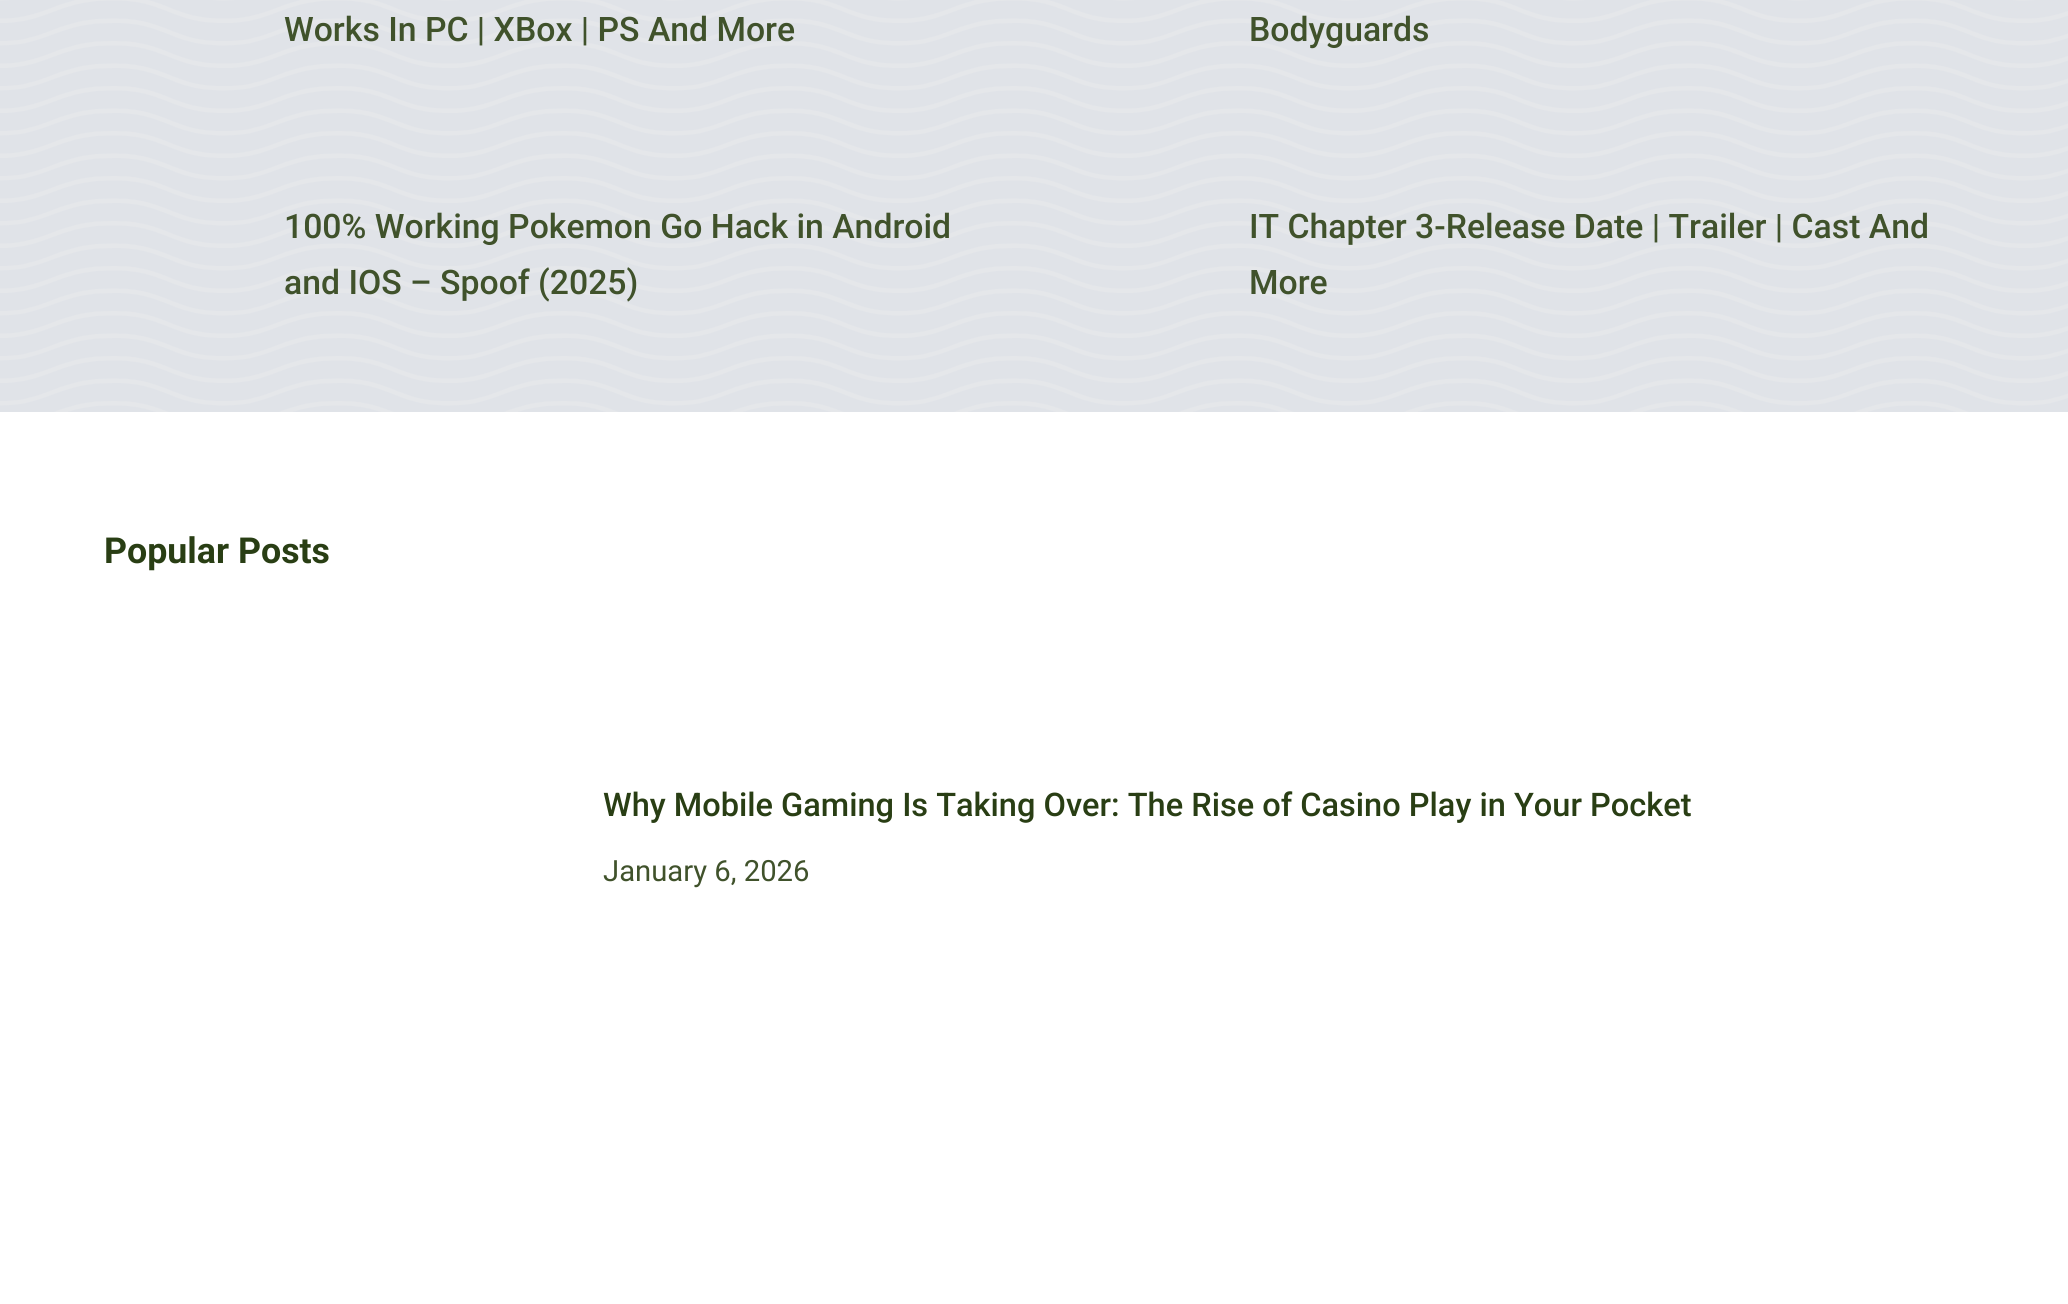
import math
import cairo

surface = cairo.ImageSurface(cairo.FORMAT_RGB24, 2068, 1304)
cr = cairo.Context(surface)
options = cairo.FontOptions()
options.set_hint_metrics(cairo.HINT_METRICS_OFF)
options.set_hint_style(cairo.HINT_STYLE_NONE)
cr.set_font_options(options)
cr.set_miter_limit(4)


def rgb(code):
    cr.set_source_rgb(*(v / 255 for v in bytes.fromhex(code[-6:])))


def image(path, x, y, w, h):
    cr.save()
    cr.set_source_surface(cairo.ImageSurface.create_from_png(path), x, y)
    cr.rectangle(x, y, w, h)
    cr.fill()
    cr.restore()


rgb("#ffffff")
cr.paint()
rgb("#e0e3e8")
cr.rectangle(0, 0, 2068, 412)
cr.fill()
image("img/1.png", 0, 0, 2068, 412)
cr.select_font_face("Roboto Medium")
cr.set_font_size(33.75)
rgb("#40522b")
for x, y, s in [
    (284, 41, "Works In PC | XBox | PS And More"),
    (1249, 41, "Bodyguards"),
    (284, 238, "100% Working Pokemon Go Hack in Android"),
    (284, 294, "and IOS – Spoof (2025)"),
    (1249, 238, "IT Chapter 3-Release Date | Trailer | Cast And"),
    (1249, 294, "More"),
]:
    cr.move_to(x, y)
    cr.show_text(s)
cr.select_font_face("Roboto", cairo.FONT_SLANT_NORMAL, cairo.FONT_WEIGHT_BOLD)
cr.set_font_size(35.75)
rgb("#293e14")
cr.move_to(104, 563)
cr.show_text("Popular Posts")
cr.select_font_face("Roboto Medium")
cr.set_font_size(32.55)
cr.move_to(603, 816)
cr.show_text("Why Mobile Gaming Is Taking Over: The Rise of Casino Play in Your Pocket")
cr.select_font_face("Roboto")
cr.set_font_size(29.25)
rgb("#40522b")
cr.move_to(603, 881)
cr.show_text("January 6, 2026")
surface.write_to_png("page.png")
